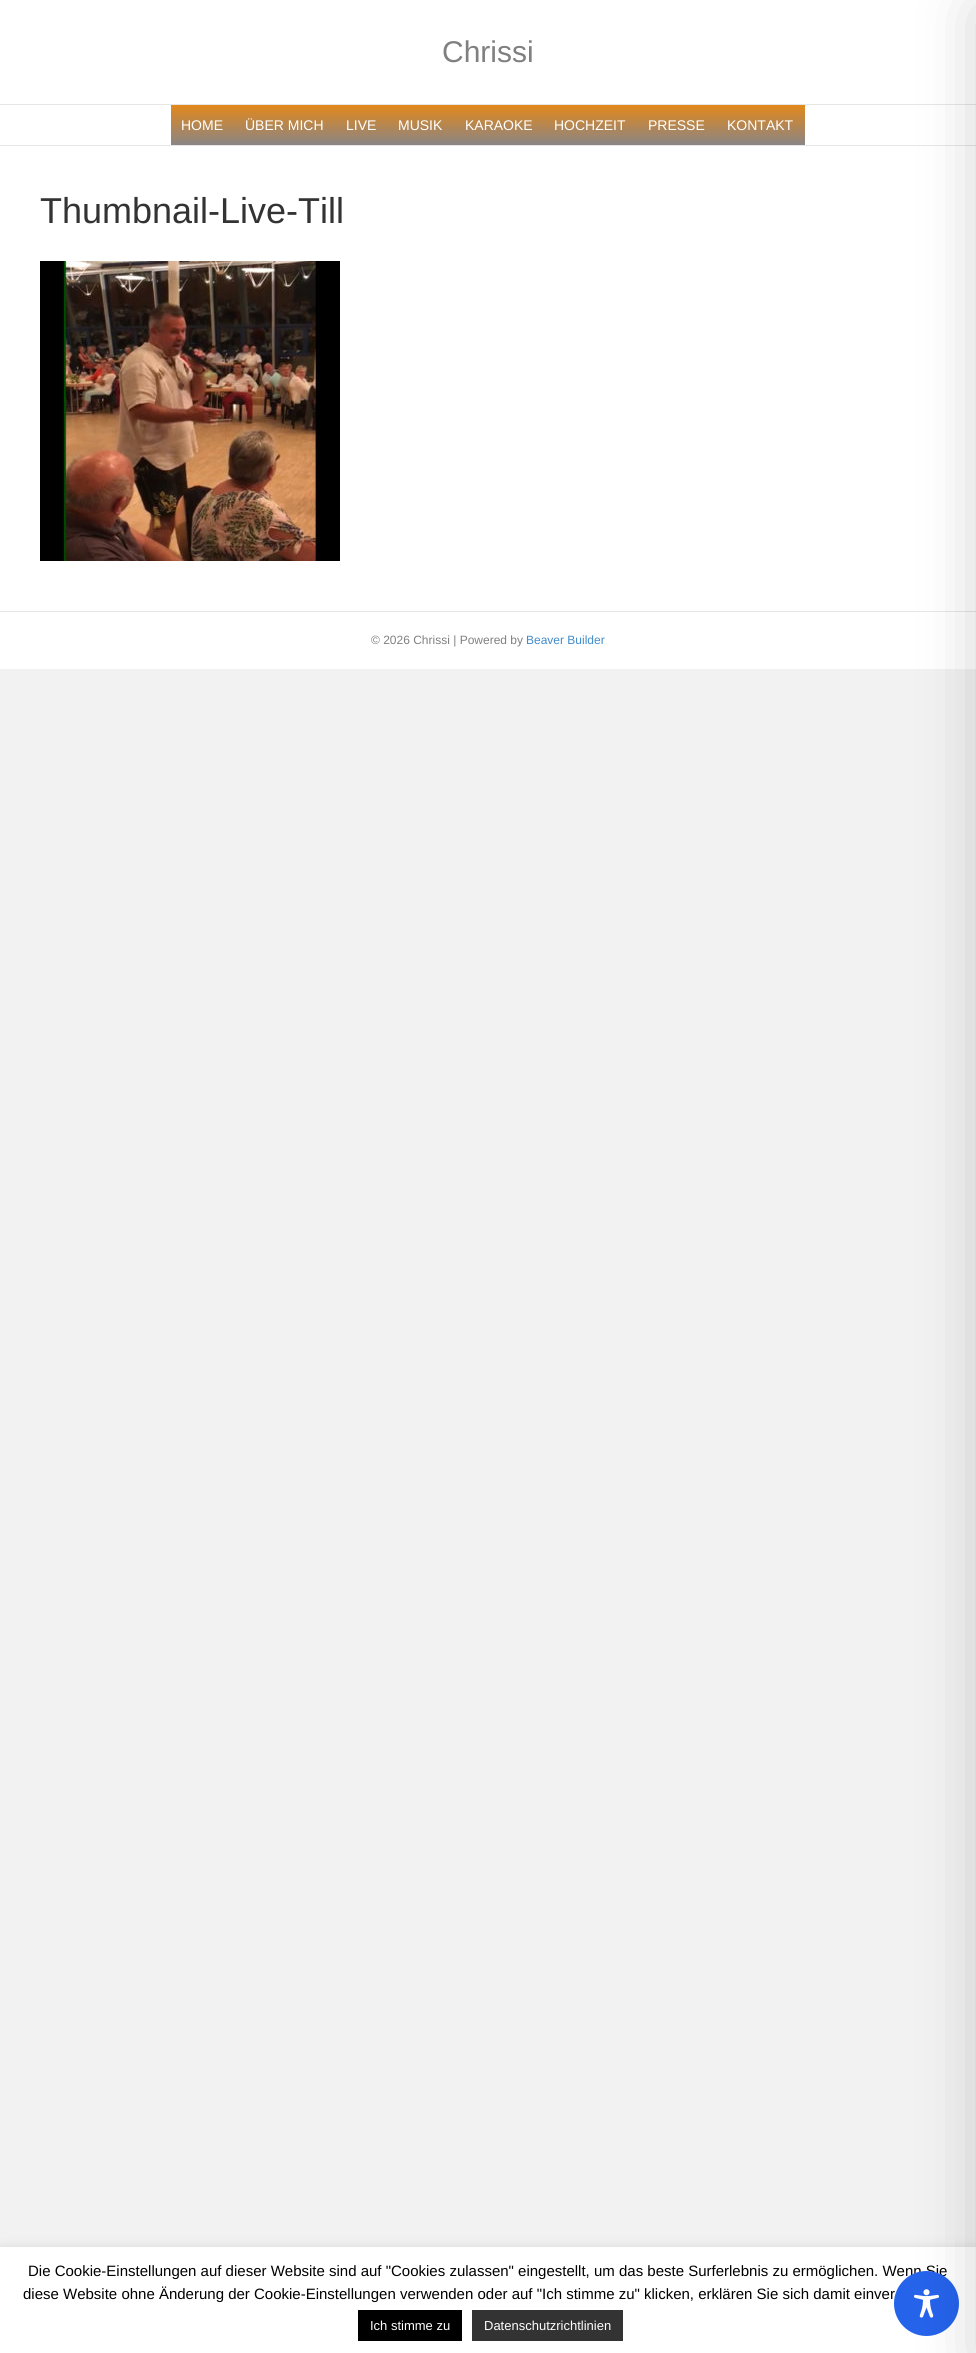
import math
import cairo

surface = cairo.ImageSurface(cairo.FORMAT_RGB24, 976, 2353)
cr = cairo.Context(surface)
options = cairo.FontOptions()
options.set_hint_metrics(cairo.HINT_METRICS_OFF)
options.set_hint_style(cairo.HINT_STYLE_NONE)
cr.set_font_options(options)
cr.set_miter_limit(4)


def rgb(code):
    cr.set_source_rgb(*(v / 255 for v in bytes.fromhex(code[-6:])))


def rrect(x, y, w, h, r):
    cr.new_sub_path()
    for i, (u, v) in enumerate([(x + w - r, y + h - r), (x + r, y + h - r), (x + r, y + r), (x + w - r, y + r)]):
        cr.arc(u, v, r, i * math.pi / 2, (i + 1) * math.pi / 2)
    cr.close_path()


def soft_shadow(x, y, w, h, r, blur, alpha):
    cr.push_group_with_content(cairo.CONTENT_ALPHA)
    cr.set_operator(cairo.OPERATOR_SOURCE)
    for i in range(15, -16, -2):
        e = blur * i / 6
        if min(w, h) + 2 * e > 0:
            cr.set_source_rgba(0, 0, 0, alpha * math.erfc((i - 1) / 8.5) / 2)
            rrect(x - e, y - e, w + 2 * e, h + 2 * e, max(0, min(r + e + blur * .6, min(w, h) / 2 + e)))
            cr.fill()
    cr.mask(cr.pop_group())


def image(path, x, y, w, h):
    cr.save()
    cr.set_source_surface(cairo.ImageSurface.create_from_png(path), x, y)
    cr.rectangle(x, y, w, h)
    cr.fill()
    cr.restore()


rgb("#f2f2f2")
cr.paint()
for x, y, w, h, color in [
    (0, 0, 976, 145, "#ffffff"),
    (0, 104, 976, 1, "#e6e6e6"),
    (0, 145, 976, 1, "#e6e6e6"),
]:
    rgb(color)
    cr.rectangle(x, y, w, h)
    cr.fill()
gradient = cairo.LinearGradient(488, 105, 488, 145)
gradient.add_color_stop_rgba(0, 0.89, 0.533, 0.102, 1)
gradient.add_color_stop_rgba(1, 0.541, 0.522, 0.522, 1)
cr.set_source(gradient)
cr.rectangle(171, 105, 634, 40)
cr.fill()
rgb("#ffffff")
cr.rectangle(0, 146, 976, 465)
cr.fill()
image("img/1.png", 40, 261, 300, 300)
cr.rectangle(0, 612, 976, 57)
cr.fill()
rgb("#e6e6e6")
cr.rectangle(0, 611, 976, 1)
cr.fill()
rgb("#acabab")
soft_shadow(0, 2246, 976, 106, 0, 5, 0.3)
for x, y, w, h, color in [
    (0, 2247, 976, 106, "#ffffff"),
    (358, 2310, 104, 31, "#000000"),
    (472, 2310, 151, 31, "#333333"),
]:
    rgb(color)
    cr.rectangle(x, y, w, h)
    cr.fill()
cr.select_font_face("Liberation Sans")
cr.set_font_size(30)
rgb("#808080")
cr.move_to(442, 62)
cr.show_text("Chrissi")
cr.set_font_size(14)
rgb("#ffffff")
for x, y, s in [
    (181, 130, "HOME"),
    (245, 130, "ÜBER MICH"),
    (346, 130, "LIVE"),
    (398, 130, "MUSIK"),
    (465, 130, "KARAOKE"),
    (554, 130, "HOCHZEIT"),
    (648, 130, "PRESSE"),
    (727, 130, "KONTAKT"),
]:
    cr.move_to(x, y)
    cr.show_text(s)
cr.set_font_size(36)
rgb("#333333")
cr.move_to(40, 223)
cr.show_text("Thumbnail-Live-Till")
cr.set_font_size(12)
rgb("#808080")
cr.move_to(371, 644)
cr.show_text("© 2026 Chrissi | Powered by")
rgb("#428bca")
cr.move_to(526, 644)
cr.show_text("Beaver Builder")
cr.set_font_size(15)
rgb("#000000")
cr.move_to(28, 2276)
cr.show_text("Die Cookie-Einstellungen auf dieser Website sind auf \"Cookies zulassen\" eingestellt, um das beste Surferlebnis zu ermöglichen. Wenn Sie")
cr.move_to(23, 2299)
cr.show_text("diese Website ohne Änderung der Cookie-Einstellungen verwenden oder auf \"Ich stimme zu\" klicken, erklären Sie sich damit einver")
cr.set_font_size(13)
rgb("#ffffff")
cr.move_to(370, 2330)
cr.show_text("Ich stimme zu")
cr.move_to(484, 2330)
cr.show_text("Datenschutzrichtlinien")
rgb("#2563eb")
cr.new_path()
cr.arc(926.5, 2303.5, 32.5, 0, 2 * math.pi)
cr.fill()
image("img/2.png", 914, 2289, 25, 29)
rgb("#000000")
soft_shadow(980, 10, 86, 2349, 0, 30, 0.2)
surface.write_to_png("page.png")
